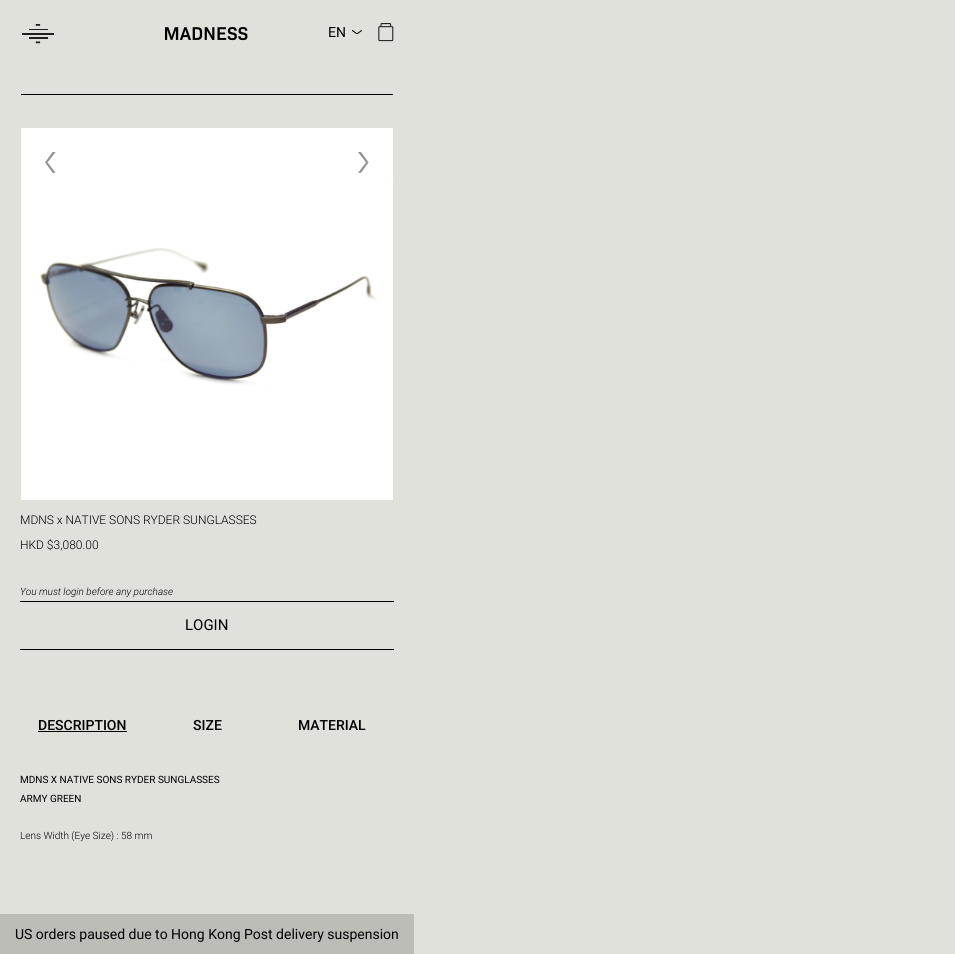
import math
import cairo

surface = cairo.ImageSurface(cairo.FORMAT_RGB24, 955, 954)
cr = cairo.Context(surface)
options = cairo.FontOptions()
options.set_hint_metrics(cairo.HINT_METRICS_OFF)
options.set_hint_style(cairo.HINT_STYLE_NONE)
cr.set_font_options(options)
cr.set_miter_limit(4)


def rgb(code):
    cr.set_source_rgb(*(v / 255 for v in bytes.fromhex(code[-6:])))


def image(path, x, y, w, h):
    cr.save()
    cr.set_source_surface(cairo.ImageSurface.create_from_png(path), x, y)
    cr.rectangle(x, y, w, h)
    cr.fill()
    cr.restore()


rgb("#e0e1db")
cr.paint()
image("img/1.png", 22, 24, 32, 20)
image("img/2.png", 165, 27, 83, 14)
image("img/3.png", 352, 30, 10, 4)
image("img/4.png", 378, 23, 16, 19)
rgb("#000000")
cr.rectangle(21, 94, 372, 1)
cr.fill()
image("img/5.png", 21, 128, 372, 372)
image("img/6.png", 45, 152, 11, 21)
image("img/7.png", 358, 152, 11, 21)
for x, y, w, h, color in [
    (20, 601, 374, 1, "#000000"),
    (20, 649, 374, 1, "#000000"),
    (38, 731, 89, 1, "#000000"),
    (0, 914, 414, 40, "#bcbdb7"),
]:
    rgb(color)
    cr.rectangle(x, y, w, h)
    cr.fill()
cr.select_font_face("Roboto")
cr.set_font_size(14)
rgb("#000000")
cr.move_to(328, 37)
cr.show_text("EN")
cr.select_font_face("Roboto Light")
cr.set_font_size(12)
cr.move_to(20, 524)
cr.show_text("MDNS x NATIVE SONS RYDER SUNGLASSES")
cr.move_to(20, 549)
cr.show_text("HKD $3,080.00")
cr.select_font_face("Roboto Light", cairo.FONT_SLANT_ITALIC)
cr.set_font_size(10)
cr.move_to(20, 595)
cr.show_text("You must login before any purchase")
cr.select_font_face("Roboto")
cr.set_font_size(15)
cr.move_to(185, 630)
cr.show_text("LOGIN")
cr.select_font_face("Roboto Medium")
cr.set_font_size(14)
cr.move_to(38, 730)
cr.show_text("DESCRIPTION")
cr.select_font_face("Roboto")
cr.set_font_size(10)
cr.move_to(20, 783)
cr.show_text("MDNS X NATIVE SONS RYDER SUNGLASSES")
cr.move_to(20, 802)
cr.show_text("ARMY GREEN")
cr.select_font_face("Roboto Light")
cr.move_to(20, 839)
cr.show_text("Lens Width (Eye Size) : 58 mm")
cr.select_font_face("Roboto Medium")
cr.set_font_size(14)
cr.move_to(193, 730)
cr.show_text("SIZE")
cr.move_to(298, 730)
cr.show_text("MATERIAL")
cr.select_font_face("Roboto")
cr.move_to(15, 939)
cr.show_text("US orders paused due to Hong Kong Post delivery suspension")
surface.write_to_png("page.png")
